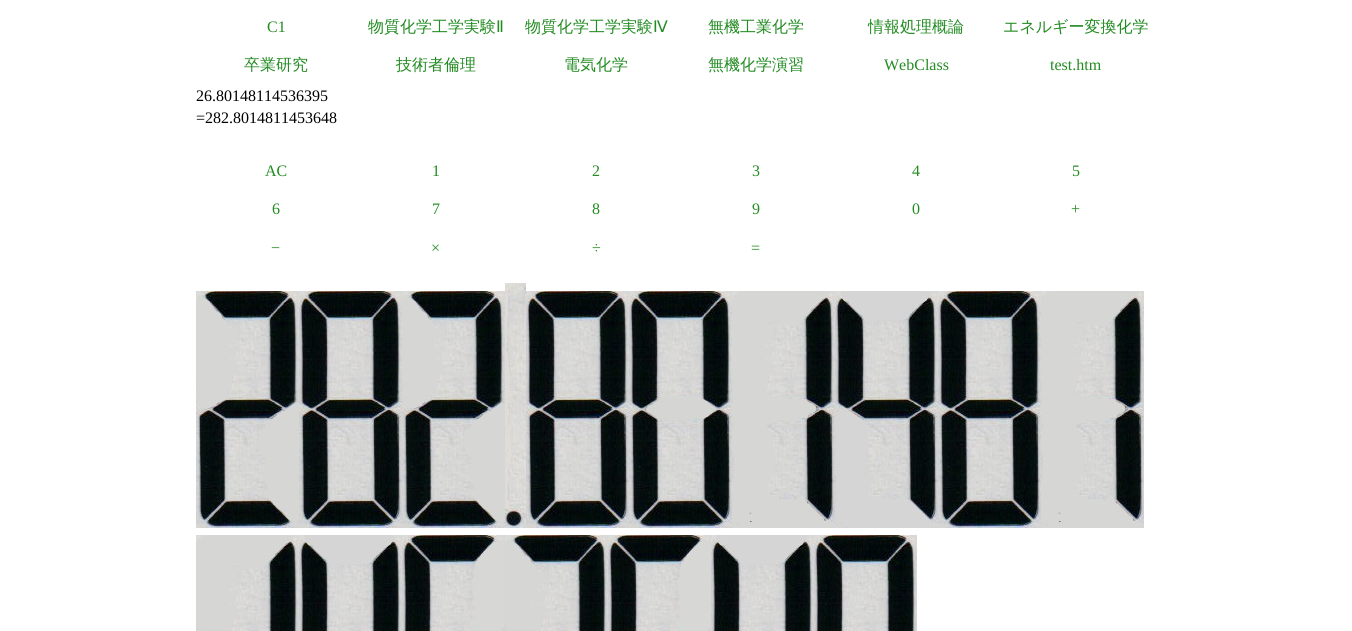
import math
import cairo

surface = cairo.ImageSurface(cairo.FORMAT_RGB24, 1352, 631)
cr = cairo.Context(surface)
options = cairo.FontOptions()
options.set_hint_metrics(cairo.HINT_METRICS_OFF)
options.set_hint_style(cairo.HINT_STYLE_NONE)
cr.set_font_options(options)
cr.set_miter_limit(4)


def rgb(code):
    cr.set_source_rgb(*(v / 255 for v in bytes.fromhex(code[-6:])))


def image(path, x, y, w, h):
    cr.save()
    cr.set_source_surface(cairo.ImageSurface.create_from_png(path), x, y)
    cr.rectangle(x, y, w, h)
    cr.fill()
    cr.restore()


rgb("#ffffff")
cr.paint()
image("img/1.png", 196, 291, 103, 237)
image("img/2.png", 299, 291, 103, 237)
image("img/1.png", 402, 291, 103, 237)
image("img/3.png", 505, 283, 21, 245)
image("img/2.png", 526, 291, 103, 237)
image("img/4.png", 629, 291, 103, 237)
image("img/5.png", 732, 291, 103, 237)
image("img/6.png", 835, 291, 103, 237)
image("img/2.png", 938, 291, 103, 237)
image("img/5.png", 1041, 291, 103, 237)
image("img/7.png", 196, 535, 103, 96)
image("img/8.png", 299, 535, 103, 96)
image("img/9.png", 402, 535, 103, 96)
image("img/10.png", 505, 535, 103, 96)
image("img/9.png", 608, 535, 103, 96)
image("img/8.png", 711, 535, 103, 96)
image("img/11.png", 814, 535, 103, 96)
cr.select_font_face("Liberation Serif")
cr.set_font_size(16)
rgb("#228b22")
cr.move_to(267, 32)
cr.show_text("C1")
cr.select_font_face("WenQuanYi Zen Hei Medium")
cr.move_to(368, 32)
cr.show_text("物質化学工学実験")
cr.select_font_face("DejaVu Sans")
cr.move_to(496, 32)
cr.show_text("Ⅱ")
cr.select_font_face("WenQuanYi Zen Hei Medium")
cr.move_to(525, 32)
cr.show_text("物質化学工学実験")
cr.select_font_face("DejaVu Sans")
cr.move_to(653, 32)
cr.show_text("Ⅳ")
cr.select_font_face("WenQuanYi Zen Hei Medium")
for x, y, s in [
    (708, 32, "無機工業化学"),
    (868, 32, "情報処理概論"),
    (1003, 32, "エネルギー変換化学"),
    (244, 70, "卒業研究"),
    (396, 70, "技術者倫理"),
    (564, 70, "電気化学"),
    (708, 70, "無機化学演習"),
]:
    cr.move_to(x, y)
    cr.show_text(s)
cr.select_font_face("Liberation Serif")
cr.move_to(884, 70)
cr.show_text("WebClass")
cr.move_to(1050, 70)
cr.show_text("test.htm")
rgb("#000000")
cr.move_to(196, 101)
cr.show_text("26.80148114536395")
cr.move_to(196, 123)
cr.show_text("=282.8014811453648")
rgb("#228b22")
for x, y, s in [
    (265, 176, "AC"),
    (432, 176, "1"),
    (592, 176, "2"),
    (752, 176, "3"),
    (912, 176, "4"),
    (1072, 176, "5"),
    (272, 214, "6"),
    (432, 214, "7"),
    (592, 214, "8"),
    (752, 214, "9"),
    (912, 214, "0"),
    (1071, 214, "+"),
    (271, 253, "−"),
    (431, 253, "×"),
    (592, 253, "÷"),
    (751, 253, "="),
]:
    cr.move_to(x, y)
    cr.show_text(s)
surface.write_to_png("page.png")
